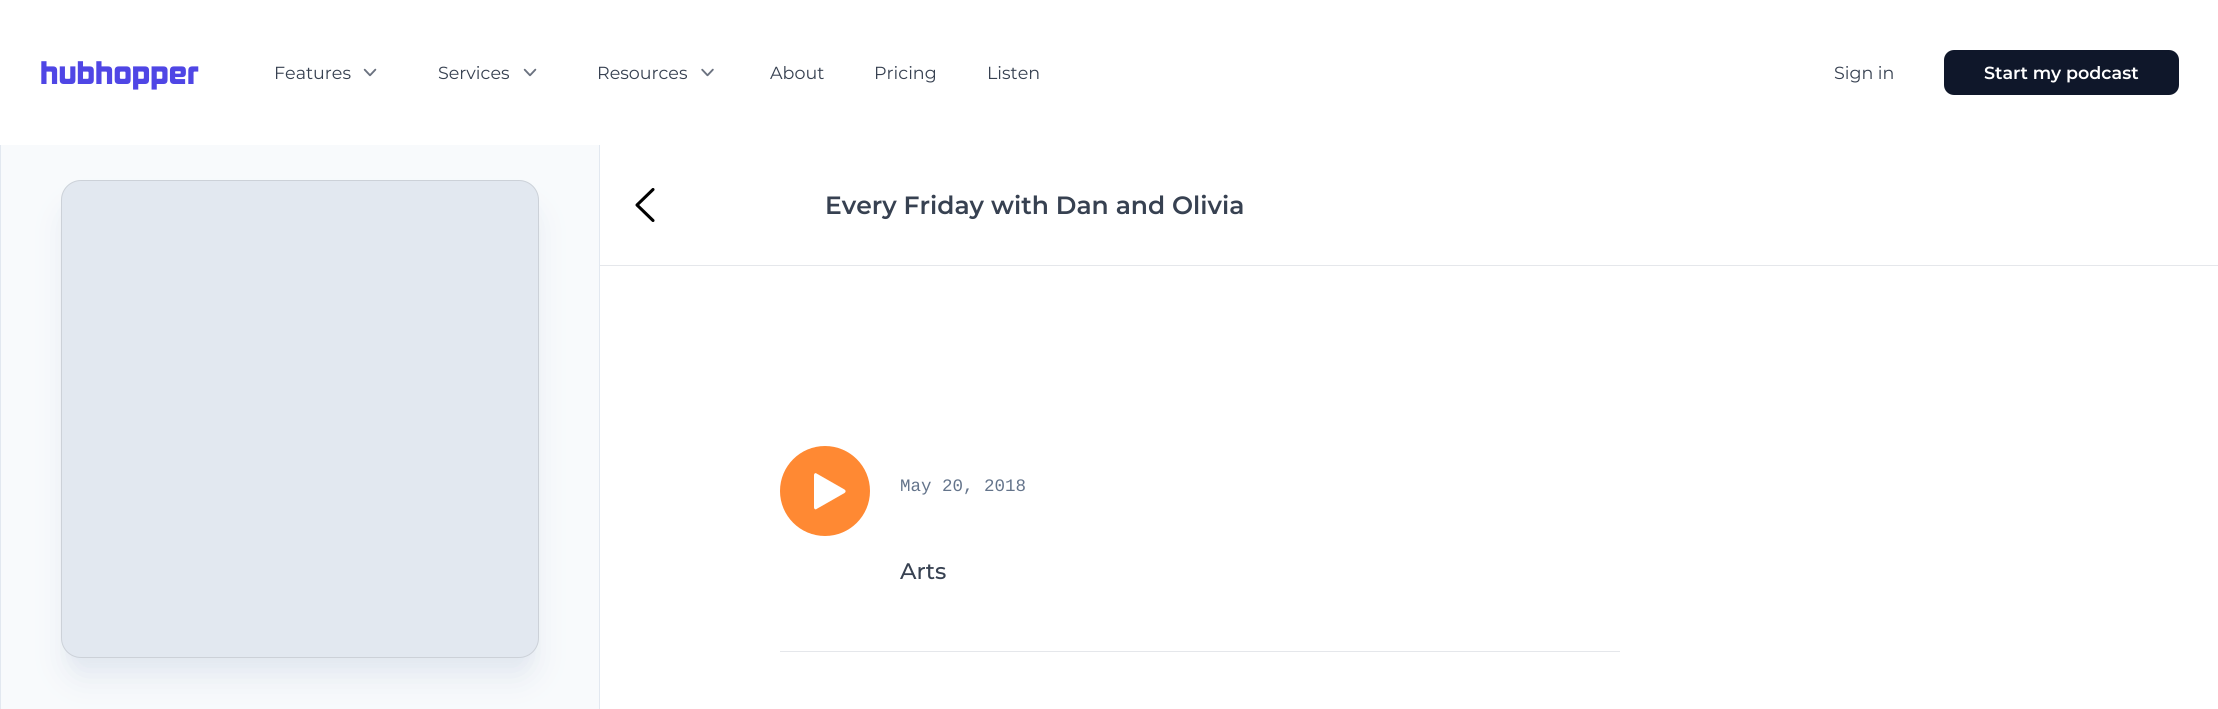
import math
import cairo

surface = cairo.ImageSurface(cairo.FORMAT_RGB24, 2218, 709)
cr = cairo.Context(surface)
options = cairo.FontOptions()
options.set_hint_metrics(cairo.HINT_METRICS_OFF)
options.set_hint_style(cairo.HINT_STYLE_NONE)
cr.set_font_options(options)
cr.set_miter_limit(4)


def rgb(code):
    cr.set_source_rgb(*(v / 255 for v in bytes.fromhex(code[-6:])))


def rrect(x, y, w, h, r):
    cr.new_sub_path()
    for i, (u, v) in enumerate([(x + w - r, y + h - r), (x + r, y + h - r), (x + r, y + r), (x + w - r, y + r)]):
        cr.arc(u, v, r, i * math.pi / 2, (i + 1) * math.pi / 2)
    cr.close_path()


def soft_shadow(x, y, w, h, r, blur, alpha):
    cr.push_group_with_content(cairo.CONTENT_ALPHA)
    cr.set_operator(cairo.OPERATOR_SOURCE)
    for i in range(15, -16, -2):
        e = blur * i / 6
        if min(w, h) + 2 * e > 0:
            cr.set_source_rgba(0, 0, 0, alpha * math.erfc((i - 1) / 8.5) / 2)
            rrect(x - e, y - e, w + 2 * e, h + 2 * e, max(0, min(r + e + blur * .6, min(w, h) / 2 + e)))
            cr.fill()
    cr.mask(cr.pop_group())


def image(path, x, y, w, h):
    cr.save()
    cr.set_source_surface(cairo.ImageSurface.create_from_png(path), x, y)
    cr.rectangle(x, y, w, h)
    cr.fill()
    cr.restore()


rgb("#ffffff")
cr.paint()
image("img/1.png", 363, 68, 14, 9)
image("img/1.png", 523, 68, 14, 9)
image("img/2.png", 701, 68, 13, 9)
rgb("#0f172a")
rrect(1944, 50, 235, 45, 10)
cr.fill()
for x, y, w, h, color in [
    (1, 145, 598, 564, "#f8fafc"),
    (599, 145, 1, 564, "#e2e8f0"),
    (0, 145, 1, 564, "#e2e8f0"),
]:
    rgb(color)
    cr.rectangle(x, y, w, h)
    cr.fill()
rgb("#e2e8f0")
soft_shadow(69, 198, 462, 462, 13, 6, 1)
soft_shadow(68, 211, 465, 465, 14, 15.5, 1)
rgb("#e2e8f0")
rrect(61, 180, 478, 478, 20)
cr.fill()
rrect(61.5, 180.5, 477, 477, 19.5)
cr.set_source_rgba(0, 0, 0, 0.1)
cr.set_line_width(1)
cr.stroke()
rgb("#e5e7eb")
cr.rectangle(600, 265, 1618, 1)
cr.fill()
cr.new_path()
cr.move_to(653, 220.5)
cr.line_to(637, 205)
cr.line_to(653, 189.5)
rgb("#000000")
cr.set_line_width(3.1)
cr.set_line_cap(cairo.LINE_CAP_ROUND)
cr.set_line_join(cairo.LINE_JOIN_ROUND)
cr.stroke()
rgb("#ff8933")
cr.arc(825, 491, 45, 0, 2 * math.pi)
cr.fill()
rgb("#ffffff")
cr.new_path()
cr.move_to(844.5, 489.5)
cr.curve_to(846, 490.5, 846, 492, 844.5, 493)
cr.line_to(816.5, 509)
cr.curve_to(815.5, 510, 814, 509, 814, 507.5)
cr.line_to(814, 475)
cr.curve_to(814, 473.5, 815.5, 472.5, 816.5, 473.5)
cr.close_path()
cr.fill()
rgb("#e5e7eb")
cr.rectangle(780, 651, 840, 1)
cr.fill()
cr.select_font_face("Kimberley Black")
cr.set_font_size(30)
rgb("#4f46e5")
cr.move_to(40, 84)
cr.show_text("hubhopper")
cr.select_font_face("Montserrat")
cr.set_font_size(17.5)
rgb("#374151")
for x, y, s in [
    (274, 79, "Features"),
    (438, 79, "Services"),
    (597, 79, "Resources"),
    (770, 79, "About"),
    (874, 79, "Pricing"),
    (987, 79, "Listen"),
    (1834, 79, "Sign in"),
]:
    cr.move_to(x, y)
    cr.show_text(s)
cr.select_font_face("Montserrat SemiBold")
rgb("#ffffff")
cr.move_to(1984, 79)
cr.show_text("Start my podcast")
cr.set_font_size(25)
rgb("#374151")
cr.move_to(825, 214)
cr.show_text("Every Friday with Dan and Olivia")
cr.select_font_face("Liberation Mono")
cr.set_font_size(17.5)
rgb("#64748b")
cr.move_to(900, 491)
cr.show_text("May 20, 2018")
cr.select_font_face("Montserrat Medium")
cr.set_font_size(22.5)
rgb("#374151")
cr.move_to(900, 579)
cr.show_text("Arts")
surface.write_to_png("page.png")
